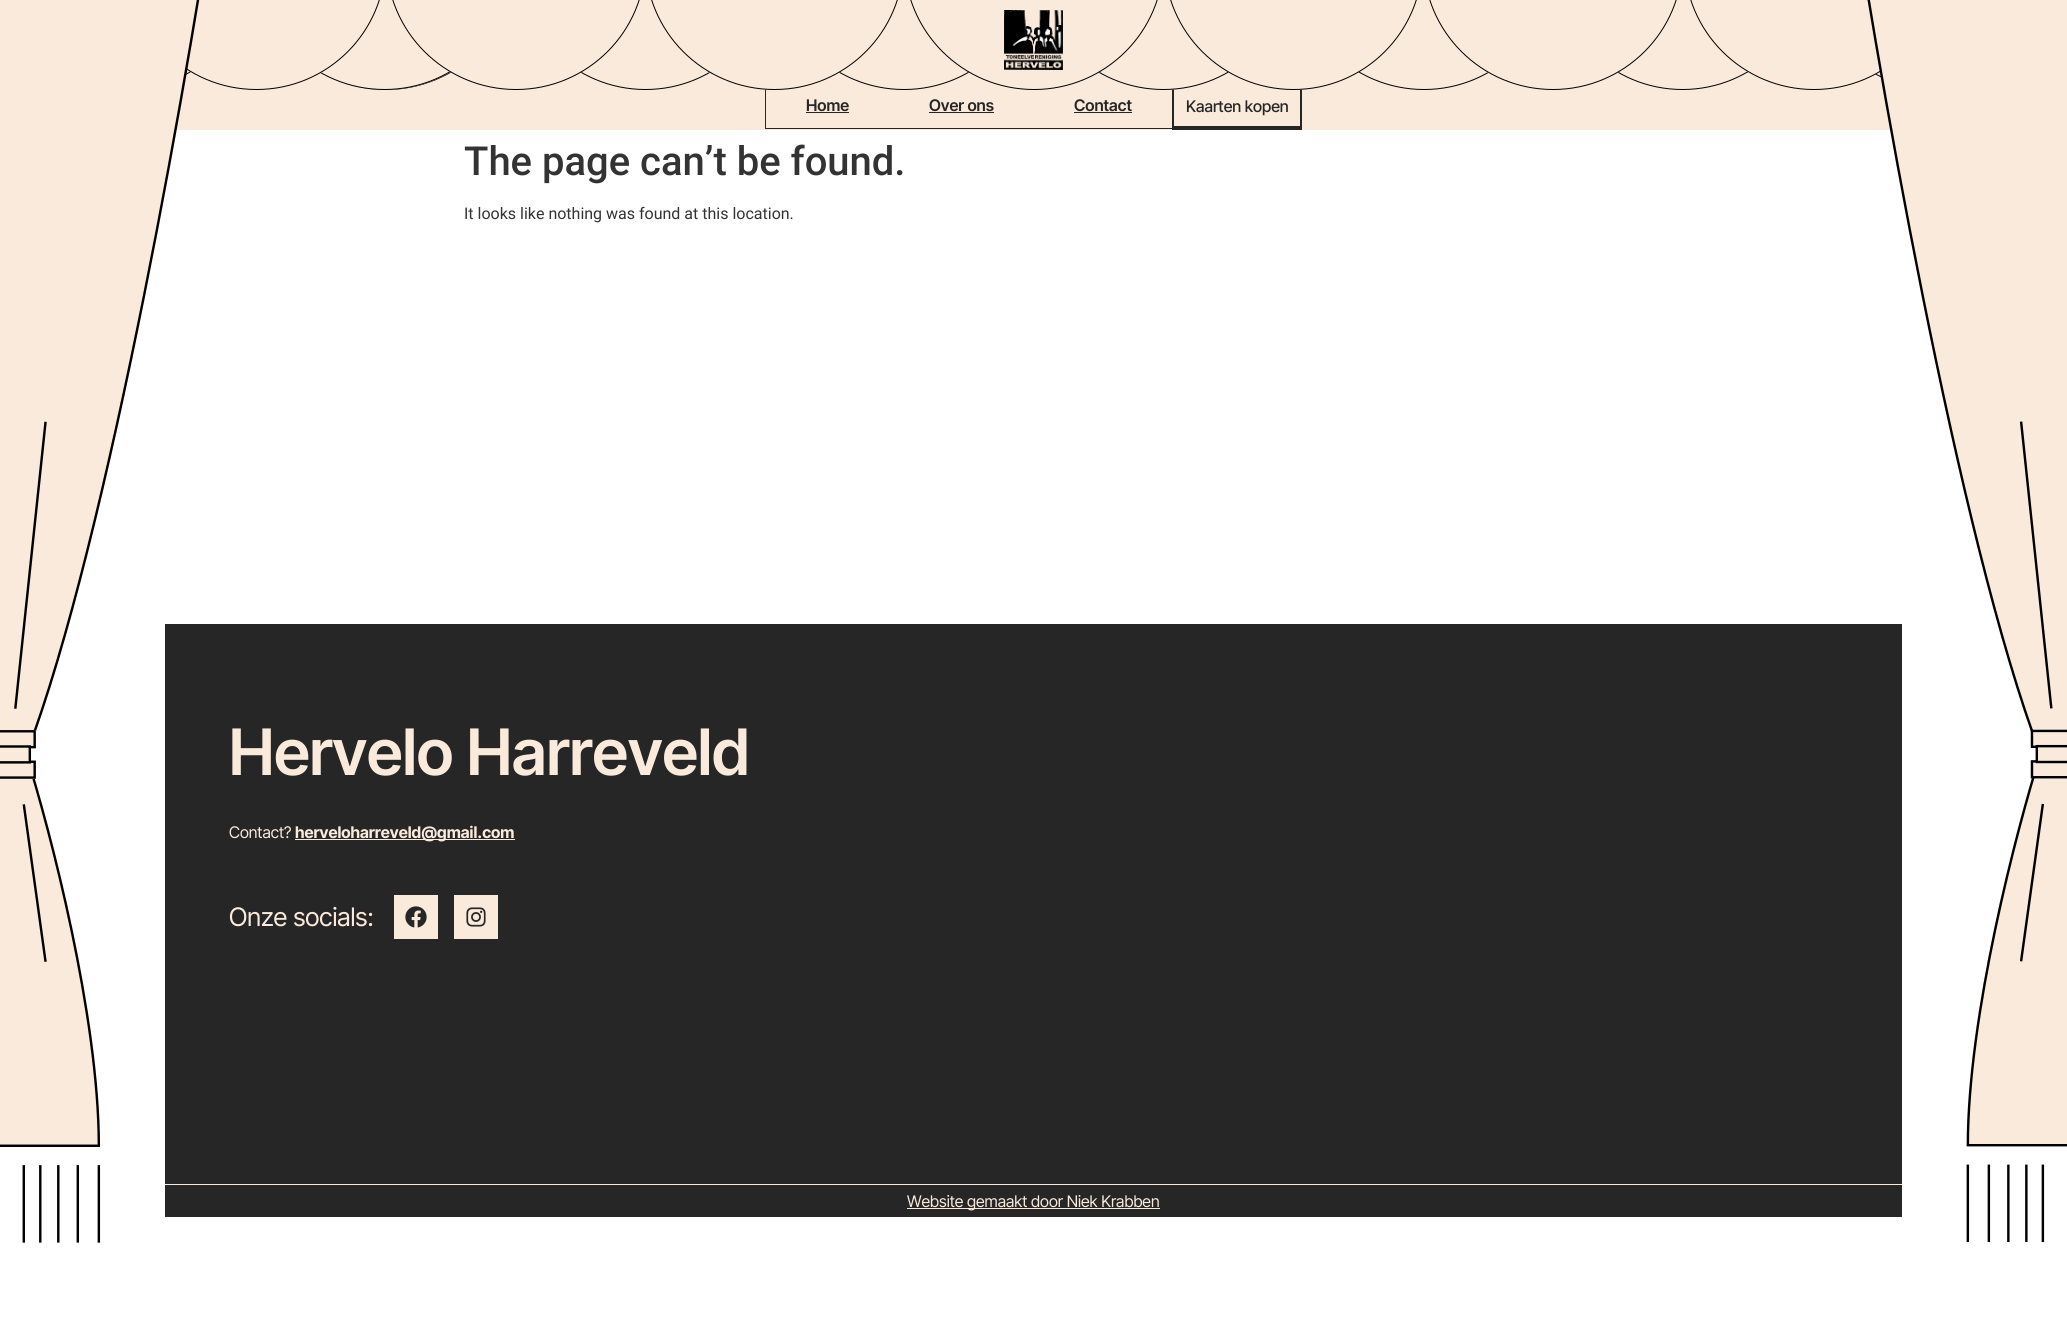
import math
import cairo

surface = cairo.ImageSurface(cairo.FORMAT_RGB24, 2067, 1322)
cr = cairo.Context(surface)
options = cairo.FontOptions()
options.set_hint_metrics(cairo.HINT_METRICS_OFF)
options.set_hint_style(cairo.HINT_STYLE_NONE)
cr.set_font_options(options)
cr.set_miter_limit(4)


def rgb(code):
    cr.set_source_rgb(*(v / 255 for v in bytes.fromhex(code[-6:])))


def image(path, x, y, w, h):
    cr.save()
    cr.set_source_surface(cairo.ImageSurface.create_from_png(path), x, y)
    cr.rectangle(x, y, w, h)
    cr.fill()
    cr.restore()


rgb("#ffffff")
cr.paint()
for x, y, w, h, color in [
    (176, 72, 1715, 58, "#faeadc"),
    (1300, 89, 2, 41, "#262626"),
    (1172, 126, 130, 4, "#262626"),
    (1172, 89, 2, 41, "#262626"),
    (765, 128, 408, 1, "#262626"),
    (765, 89, 1, 40, "#262626"),
]:
    rgb(color)
    cr.rectangle(x, y, w, h)
    cr.fill()
image("img/2.png", 186, 0, 1695, 90)
for x, y, w, h, color in [
    (165, 624, 1737, 560, "#262626"),
    (165, 1185, 1737, 32, "#262626"),
    (165, 1184, 1737, 1, "#faeadc"),
]:
    rgb(color)
    cr.rectangle(x, y, w, h)
    cr.fill()
image("img/1.png", 0, 0, 200, 1243)
image("img/3.png", 1004, 10, 59, 60)
for x, y, w, h, color in [
    (806, 112, 43, 1, "#262626"),
    (929, 112, 65, 1, "#262626"),
    (1074, 112, 58, 1, "#262626"),
]:
    rgb(color)
    cr.rectangle(x, y, w, h)
    cr.fill()
image("img/4.png", 1867, 0, 200, 1243)
rgb("#faeadc")
cr.rectangle(295, 839, 220, 1)
cr.fill()
cr.rectangle(394, 895, 44, 44)
cr.fill()
image("img/5.png", 405, 906, 22, 22)
cr.rectangle(454, 895, 44, 44)
cr.fill()
image("img/6.png", 466, 907, 20, 20)
cr.rectangle(907, 1208, 253, 1)
cr.fill()
cr.select_font_face("Inter Tight SemiBold")
cr.set_font_size(16)
rgb("#262626")
for x, y, s in [
    (806, 111, "Home"),
    (929, 111, "Over ons"),
    (1074, 111, "Contact"),
]:
    cr.move_to(x, y)
    cr.show_text(s)
cr.select_font_face("Inter Tight Medium")
cr.move_to(1186, 112)
cr.show_text("Kaarten kopen")
cr.select_font_face("Roboto Medium")
cr.set_font_size(40)
rgb("#333333")
cr.move_to(464, 175)
cr.show_text("The page can’t be found.")
cr.select_font_face("Roboto")
cr.set_font_size(16)
cr.move_to(464, 219)
cr.show_text("It looks like nothing was found at this location.")
cr.select_font_face("Inter Tight SemiBold")
cr.set_font_size(64)
rgb("#faeadc")
cr.move_to(229, 775)
cr.show_text("Hervelo Harreveld")
cr.select_font_face("Inter Tight")
cr.set_font_size(16)
cr.move_to(229, 838)
cr.show_text("Contact?")
cr.select_font_face("Inter Tight", cairo.FONT_SLANT_NORMAL, cairo.FONT_WEIGHT_BOLD)
cr.move_to(295, 838)
cr.show_text("herveloharreveld@gmail.com")
cr.select_font_face("Inter Tight")
cr.set_font_size(25.5)
cr.move_to(229, 926)
cr.show_text("Onze socials:")
cr.set_font_size(16)
cr.move_to(907, 1207)
cr.show_text("Website gemaakt door Niek Krabben")
surface.write_to_png("page.png")
